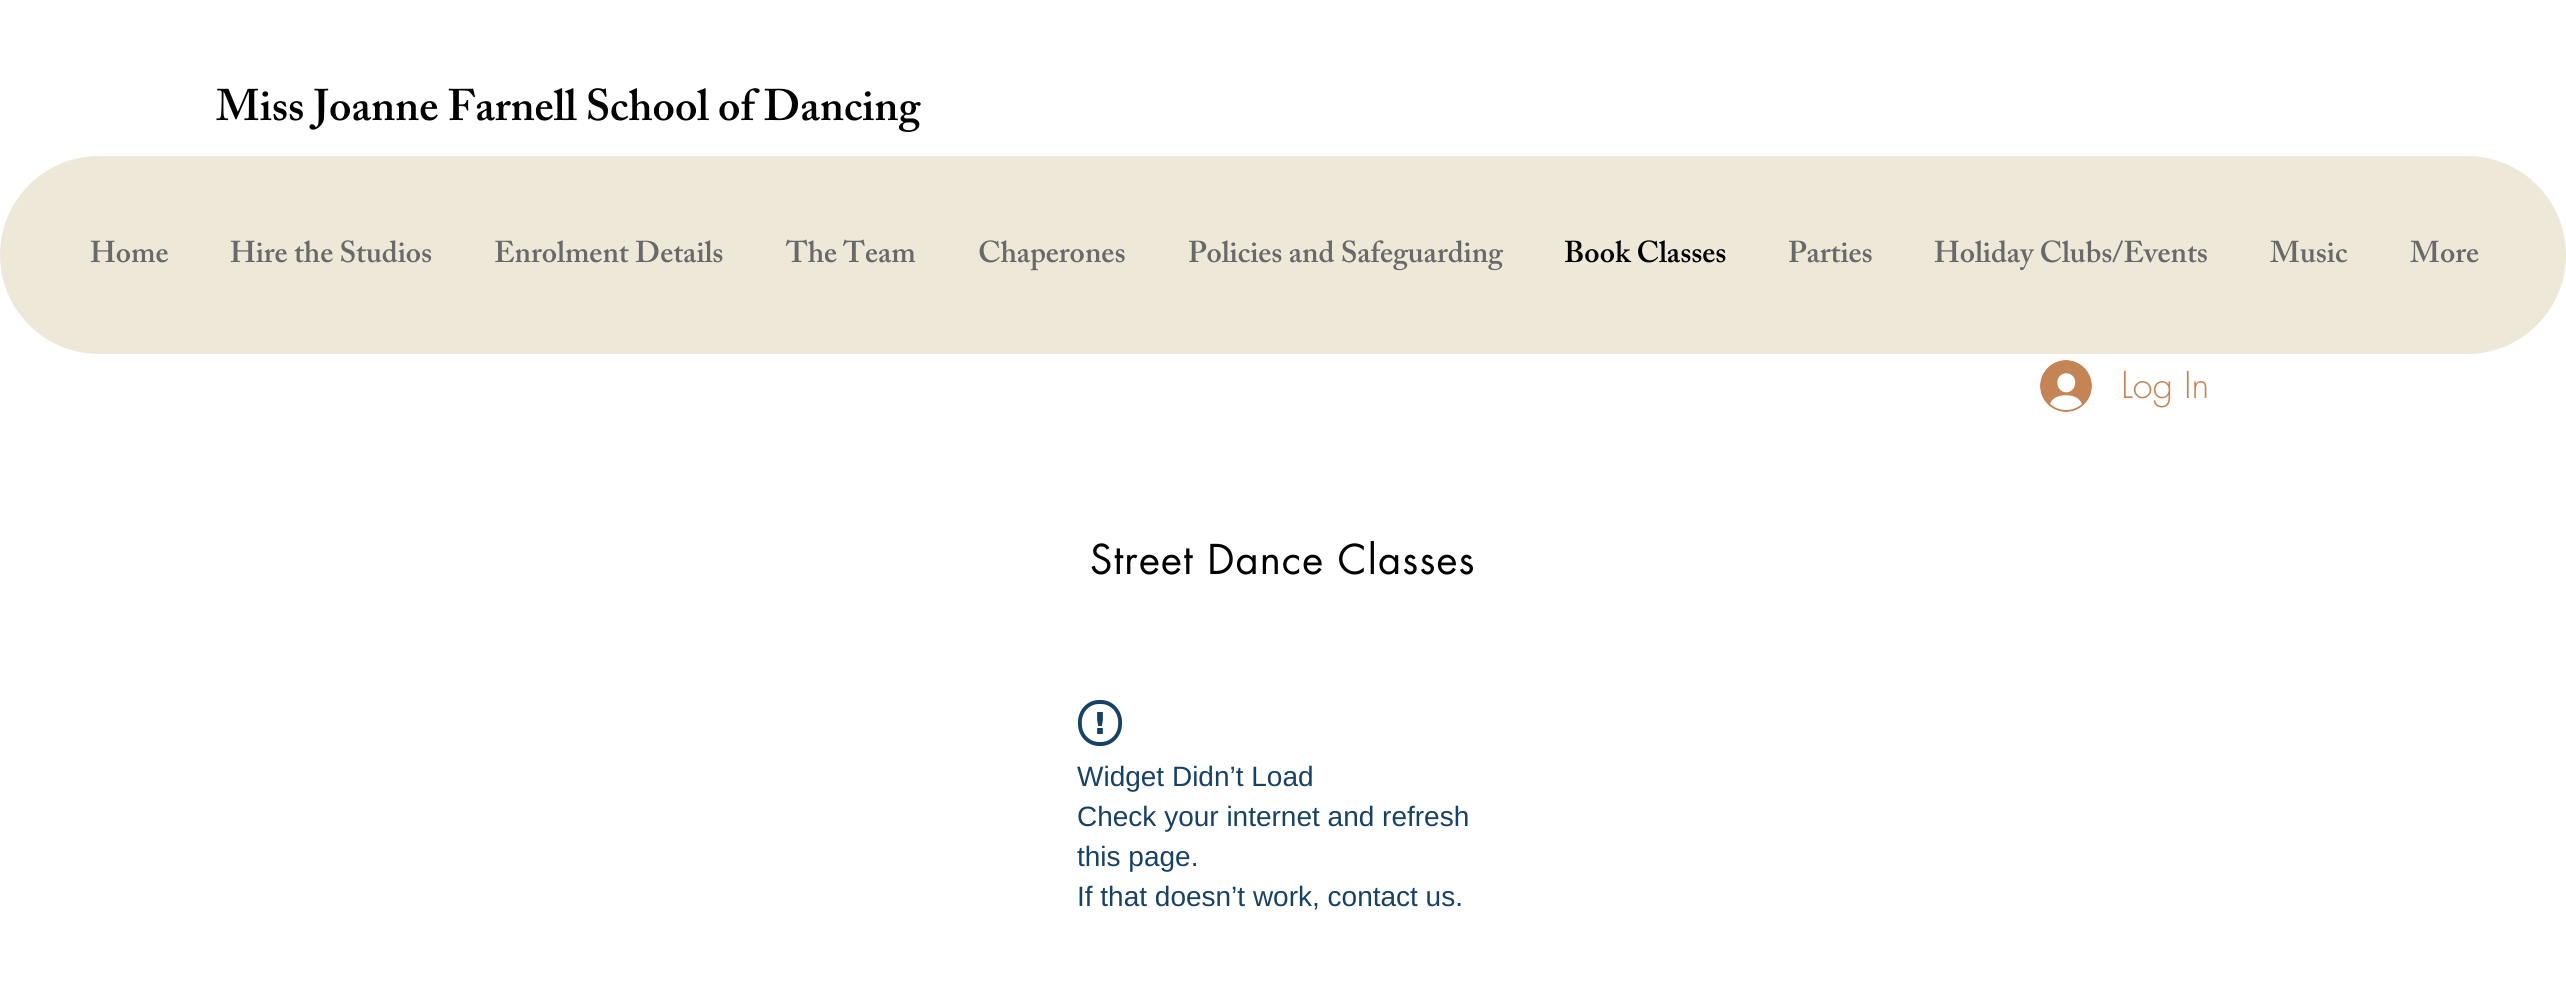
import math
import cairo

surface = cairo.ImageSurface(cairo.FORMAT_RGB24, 2566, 982)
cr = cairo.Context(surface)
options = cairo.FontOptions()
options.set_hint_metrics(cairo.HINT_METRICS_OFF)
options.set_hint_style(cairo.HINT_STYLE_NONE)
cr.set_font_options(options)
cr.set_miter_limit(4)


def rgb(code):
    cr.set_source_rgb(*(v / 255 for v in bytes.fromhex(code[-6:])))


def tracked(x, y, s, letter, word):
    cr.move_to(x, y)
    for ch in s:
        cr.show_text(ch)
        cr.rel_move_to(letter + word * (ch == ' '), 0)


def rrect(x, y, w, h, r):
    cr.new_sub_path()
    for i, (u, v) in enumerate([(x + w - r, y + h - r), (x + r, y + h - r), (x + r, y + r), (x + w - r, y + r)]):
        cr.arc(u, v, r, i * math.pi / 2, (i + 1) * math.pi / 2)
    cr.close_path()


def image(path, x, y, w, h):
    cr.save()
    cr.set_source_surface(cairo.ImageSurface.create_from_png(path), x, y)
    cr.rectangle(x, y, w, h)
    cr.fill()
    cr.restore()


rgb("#ffffff")
cr.paint()
rgb("#eee8d8")
rrect(0, 156, 2566, 198, 99)
cr.fill()
image("img/1.png", 2040, 360, 52, 52)
image("img/2.png", 1078, 700, 44, 46)
cr.select_font_face("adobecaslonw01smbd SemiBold")
cr.set_font_size(44)
rgb("#000000")
cr.move_to(216, 120)
cr.show_text("Miss Joanne Farnell School of Dancing")
cr.set_font_size(30)
rgb("#696969")
for x, y, s in [
    (90, 262, "Home"),
    (230, 262, "Hire the Studios"),
    (494, 262, "Enrolment Details"),
    (786, 262, "The Team"),
    (978, 262, "Chaperones"),
    (1188, 262, "Policies and Safeguarding"),
]:
    cr.move_to(x, y)
    cr.show_text(s)
rgb("#000000")
cr.move_to(1564, 262)
cr.show_text("Book Classes")
rgb("#696969")
for x, y, s in [
    (1788, 262, "Parties"),
    (1934, 262, "Holiday Clubs/Events"),
    (2270, 262, "Music"),
    (2410, 262, "More"),
]:
    cr.move_to(x, y)
    cr.show_text(s)
cr.select_font_face("futura Light")
cr.set_font_size(36)
rgb("#c58455")
cr.move_to(2121, 398)
cr.show_text("Log In")
cr.select_font_face("futura")
cr.set_font_size(40)
rgb("#000000")
tracked(1090, 574, "Street Dance Classes", 1.2, 0)
cr.select_font_face("Liberation Sans")
cr.set_font_size(28)
rgb("#174165")
for x, y, s in [
    (1077, 786, "Widget Didn’t Load"),
    (1077, 826, "Check your internet and refresh"),
    (1077, 866, "this page."),
    (1077, 906, "If that doesn’t work, contact us."),
]:
    cr.move_to(x, y)
    cr.show_text(s)
surface.write_to_png("page.png")
